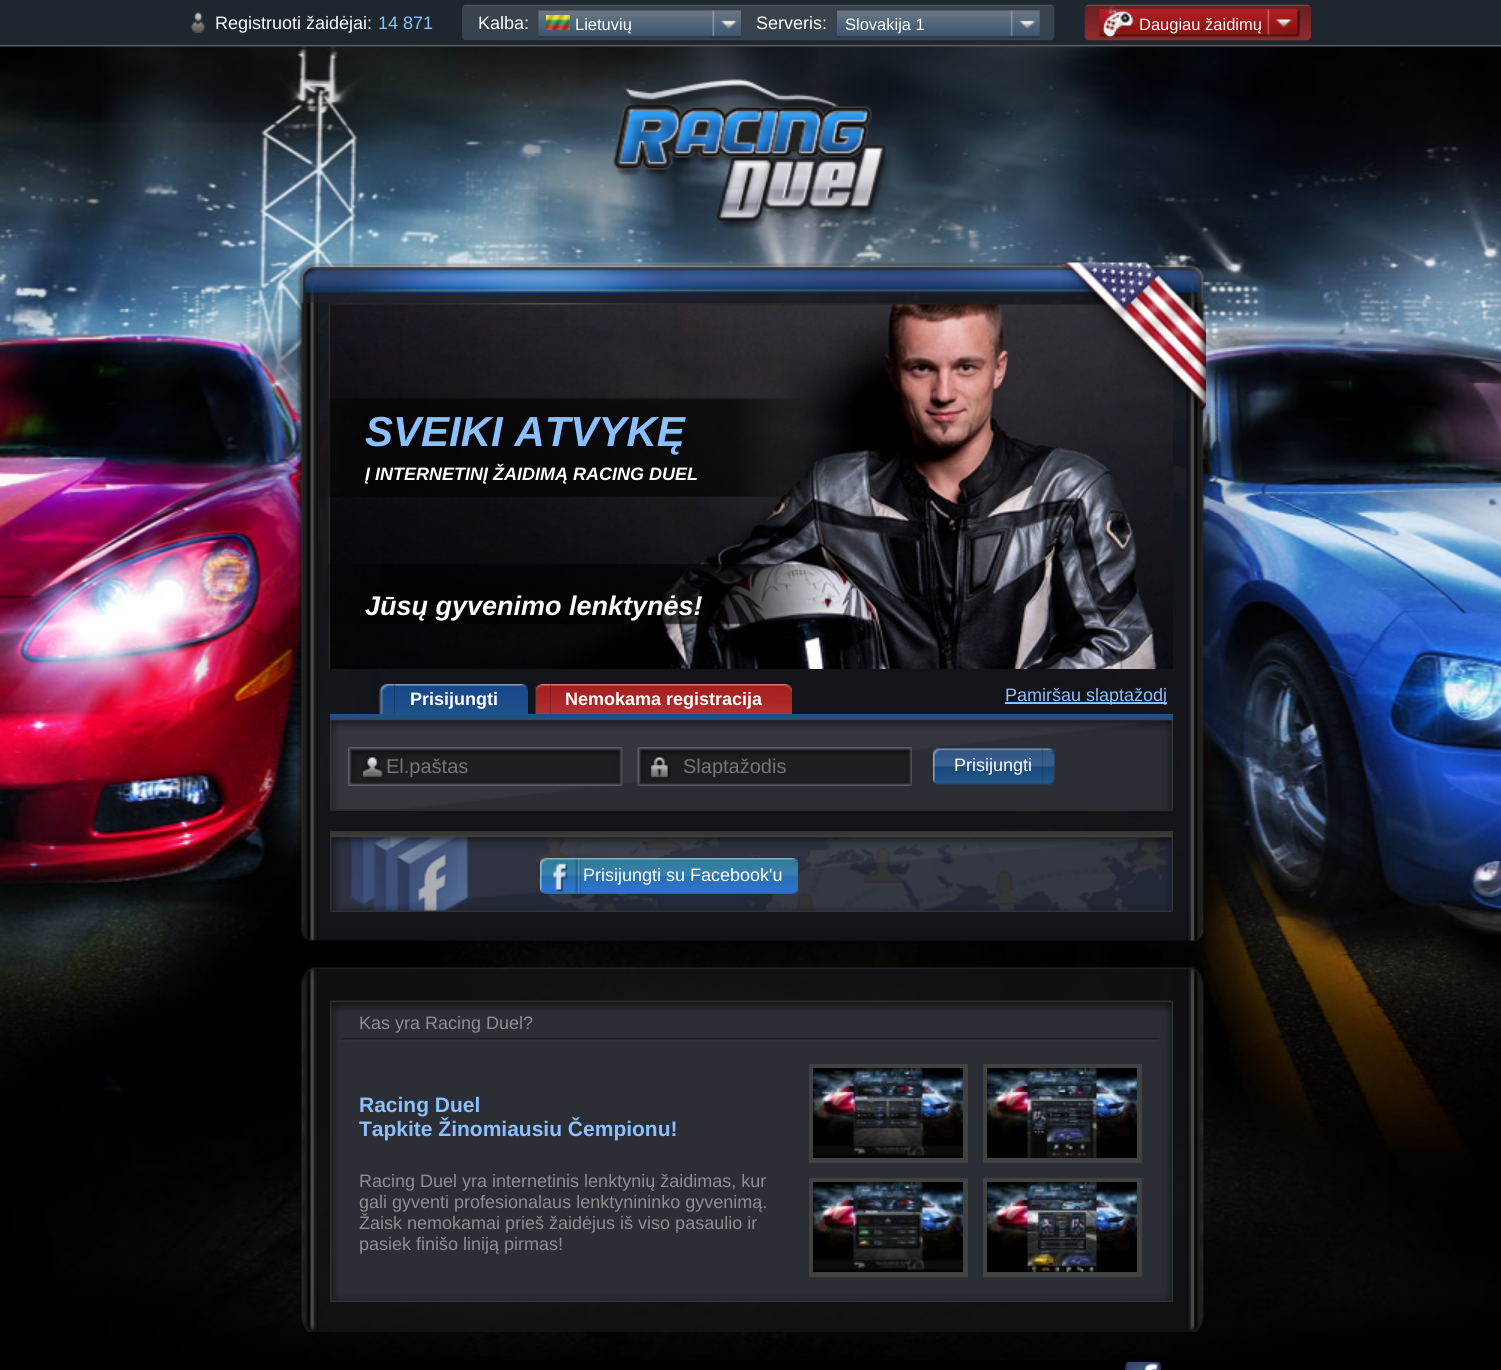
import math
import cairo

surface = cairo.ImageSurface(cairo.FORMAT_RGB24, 1501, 1370)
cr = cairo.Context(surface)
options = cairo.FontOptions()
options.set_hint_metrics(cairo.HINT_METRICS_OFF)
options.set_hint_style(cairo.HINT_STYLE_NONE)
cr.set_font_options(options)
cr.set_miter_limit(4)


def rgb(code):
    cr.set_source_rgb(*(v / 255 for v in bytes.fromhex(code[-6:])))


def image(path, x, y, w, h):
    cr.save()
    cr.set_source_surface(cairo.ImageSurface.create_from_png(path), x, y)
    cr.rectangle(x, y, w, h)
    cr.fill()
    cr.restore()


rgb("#000000")
cr.paint()
image("img/1.png", 0, 46, 1501, 1314)
image("img/2.png", 0, 0, 1501, 47)
image("img/3.png", 190, 12, 16, 21)
image("img/4.png", 462, 4, 593, 37)
image("img/5.png", 538, 9, 203, 29)
image("img/6.png", 710, 10, 31, 28)
image("img/7.png", 546, 15, 24, 15)
image("img/8.png", 837, 9, 203, 29)
image("img/9.png", 1008, 10, 32, 28)
image("img/10.png", 1084, 4, 227, 37)
image("img/11.png", 1099, 9, 205, 29)
image("img/12.png", 1267, 9, 37, 29)
image("img/13.png", 1102, 6, 32, 32)
image("img/14.png", 613, 79, 278, 151)
image("img/15.png", 297, 262, 908, 41)
image("img/17.png", 297, 303, 908, 609)
image("img/18.png", 328, 303, 845, 366)
image("img/16.png", 1062, 262, 144, 149)
image("img/19.png", 379, 684, 16, 30)
image("img/20.png", 394, 684, 119, 30)
image("img/21.png", 513, 684, 15, 30)
image("img/22.png", 535, 684, 16, 30)
image("img/23.png", 550, 684, 227, 30)
image("img/24.png", 777, 684, 15, 30)
rgb("#8ac0ff")
cr.rectangle(1005, 702, 162, 2)
cr.fill()
image("img/25.png", 330, 714, 843, 95)
rgb("#292929")
cr.rectangle(330, 809, 843, 2)
cr.fill()
image("img/26.png", 348, 747, 275, 39)
image("img/27.png", 637, 747, 275, 39)
image("img/28.png", 933, 748, 12, 37)
image("img/29.png", 945, 748, 98, 37)
image("img/30.png", 1042, 748, 13, 37)
image("img/31.png", 330, 831, 843, 81)
image("img/32.png", 540, 858, 41, 36)
image("img/33.png", 580, 858, 206, 36)
image("img/34.png", 786, 858, 12, 36)
image("img/35.png", 301, 912, 903, 29)
image("img/36.png", 300, 966, 904, 366)
image("img/37.png", 330, 1000, 843, 302)
cr.rectangle(811.5, 1066.5, 154, 94)
rgb("#424242")
cr.set_line_width(5)
cr.stroke()
image("img/38.png", 813, 1068, 150, 90)
cr.rectangle(985.5, 1066.5, 154, 94)
cr.stroke()
image("img/39.png", 987, 1068, 150, 90)
cr.rectangle(811.5, 1180.5, 154, 94)
cr.stroke()
image("img/40.png", 813, 1182, 150, 90)
cr.rectangle(985.5, 1180.5, 154, 94)
cr.stroke()
image("img/41.png", 987, 1182, 150, 90)
image("img/42.png", 1125, 1362, 36, 8)
cr.select_font_face("Liberation Sans")
cr.set_font_size(18)
rgb("#ffffff")
cr.move_to(215, 29)
cr.show_text("Registruoti žaidėjai:")
rgb("#8ac0ff")
cr.move_to(378, 29)
cr.show_text("14 871")
rgb("#ffffff")
cr.move_to(478, 29)
cr.show_text("Kalba:")
cr.set_font_size(16.5)
cr.move_to(575, 30)
cr.show_text("Lietuvių")
cr.set_font_size(18)
cr.move_to(756, 29)
cr.show_text("Serveris:")
cr.set_font_size(16.5)
cr.move_to(845, 30)
cr.show_text("Slovakija 1")
cr.move_to(1139, 30)
cr.show_text("Daugiau žaidimų")
cr.select_font_face("Liberation Sans", cairo.FONT_SLANT_ITALIC, cairo.FONT_WEIGHT_BOLD)
cr.set_font_size(42)
rgb("#8ac0ff")
cr.move_to(365, 446)
cr.show_text("SVEIKI ATVYKĘ")
cr.set_font_size(18)
rgb("#ffffff")
cr.move_to(365, 480)
cr.show_text("Į INTERNETINĮ ŽAIDIMĄ RACING DUEL")
cr.set_font_size(27)
cr.move_to(365, 615)
cr.show_text("Jūsų gyvenimo lenktynės!")
cr.select_font_face("Liberation Sans", cairo.FONT_SLANT_NORMAL, cairo.FONT_WEIGHT_BOLD)
cr.set_font_size(18)
cr.move_to(410, 705)
cr.show_text("Prisijungti")
cr.move_to(565, 705)
cr.show_text("Nemokama registracija")
cr.select_font_face("Liberation Sans")
rgb("#8ac0ff")
cr.move_to(1005, 701)
cr.show_text("Pamiršau slaptažodį")
cr.set_font_size(20)
rgb("#757575")
cr.move_to(386, 773)
cr.show_text("El.paštas")
cr.move_to(683, 773)
cr.show_text("Slaptažodis")
cr.set_font_size(18)
rgb("#ffffff")
cr.move_to(954, 771)
cr.show_text("Prisijungti")
cr.move_to(583, 881)
cr.show_text("Prisijungti su Facebook'u")
rgb("#8f8f8f")
cr.move_to(359, 1029)
cr.show_text("Kas yra Racing Duel?")
cr.select_font_face("Liberation Sans", cairo.FONT_SLANT_NORMAL, cairo.FONT_WEIGHT_BOLD)
cr.set_font_size(21)
rgb("#8ac0ff")
cr.move_to(359, 1112)
cr.show_text("Racing Duel")
cr.move_to(359, 1136)
cr.show_text("Tapkite Žinomiausiu Čempionu!")
cr.select_font_face("Liberation Sans")
cr.set_font_size(18)
rgb("#8f8f8f")
for x, y, s in [
    (359, 1187, "Racing Duel yra internetinis lenktynių žaidimas, kur"),
    (359, 1208, "gali gyventi profesionalaus lenktynininko gyvenimą."),
    (359, 1229, "Žaisk nemokamai prieš žaidėjus iš viso pasaulio ir"),
    (359, 1250, "pasiek finišo liniją pirmas!"),
]:
    cr.move_to(x, y)
    cr.show_text(s)
surface.write_to_png("page.png")
